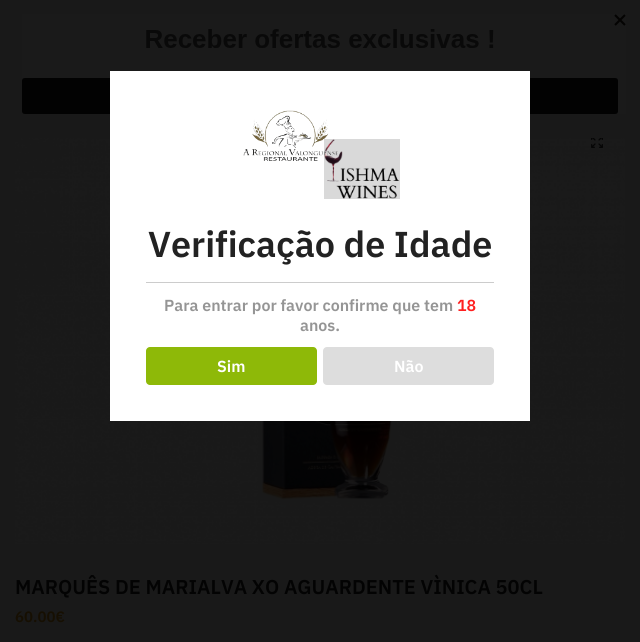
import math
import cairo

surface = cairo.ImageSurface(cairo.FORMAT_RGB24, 640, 642)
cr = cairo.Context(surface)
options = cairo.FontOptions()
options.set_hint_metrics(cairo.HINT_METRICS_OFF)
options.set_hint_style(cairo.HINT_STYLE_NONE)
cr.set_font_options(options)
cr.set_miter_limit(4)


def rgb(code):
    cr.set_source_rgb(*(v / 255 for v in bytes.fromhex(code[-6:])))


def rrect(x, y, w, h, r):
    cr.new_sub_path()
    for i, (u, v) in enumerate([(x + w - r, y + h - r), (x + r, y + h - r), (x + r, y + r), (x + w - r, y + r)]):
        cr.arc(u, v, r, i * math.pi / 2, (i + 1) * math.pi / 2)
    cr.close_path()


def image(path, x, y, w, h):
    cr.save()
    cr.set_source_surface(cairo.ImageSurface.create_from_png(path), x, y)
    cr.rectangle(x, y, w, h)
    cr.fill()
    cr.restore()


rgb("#191919")
cr.paint()
image("img/1.png", 22, 14, 604, 100)
image("img/3.png", 15, 138, 610, 406)
rgb("#ffffff")
cr.rectangle(110, 71, 420, 350)
cr.fill()
image("img/2.png", 243, 110, 157, 89)
rgb("#cccccc")
cr.rectangle(146, 282, 348, 1)
cr.fill()
rgb("#8eb908")
rrect(146, 347, 171, 38, 4)
cr.fill()
rgb("#dddddd")
rrect(323, 347, 171, 38, 4)
cr.fill()
image("img/4.png", 591, 138, 12, 10)
cr.select_font_face("IBM Plex Sans SemiBold")
cr.set_font_size(36)
rgb("#222222")
cr.move_to(148, 257)
cr.show_text("Verificação de Idade")
cr.set_font_size(16)
rgb("#959595")
cr.move_to(164, 311)
cr.show_text("Para entrar por favor confirme que tem")
rgb("#ff1f1f")
cr.move_to(457, 311)
cr.show_text("18")
rgb("#959595")
cr.move_to(300, 331)
cr.show_text("anos.")
rgb("#ffffff")
cr.move_to(217, 372)
cr.show_text("Sim")
cr.move_to(394, 372)
cr.show_text("Não")
cr.set_font_size(20)
rgb("#030303")
cr.move_to(15, 594)
cr.show_text("MARQUÊS DE MARIALVA XO AGUARDENTE VÌNICA 50CL")
cr.set_font_size(15)
rgb("#160f02")
cr.move_to(15, 622)
cr.show_text("60.00€")
surface.write_to_png("page.png")
